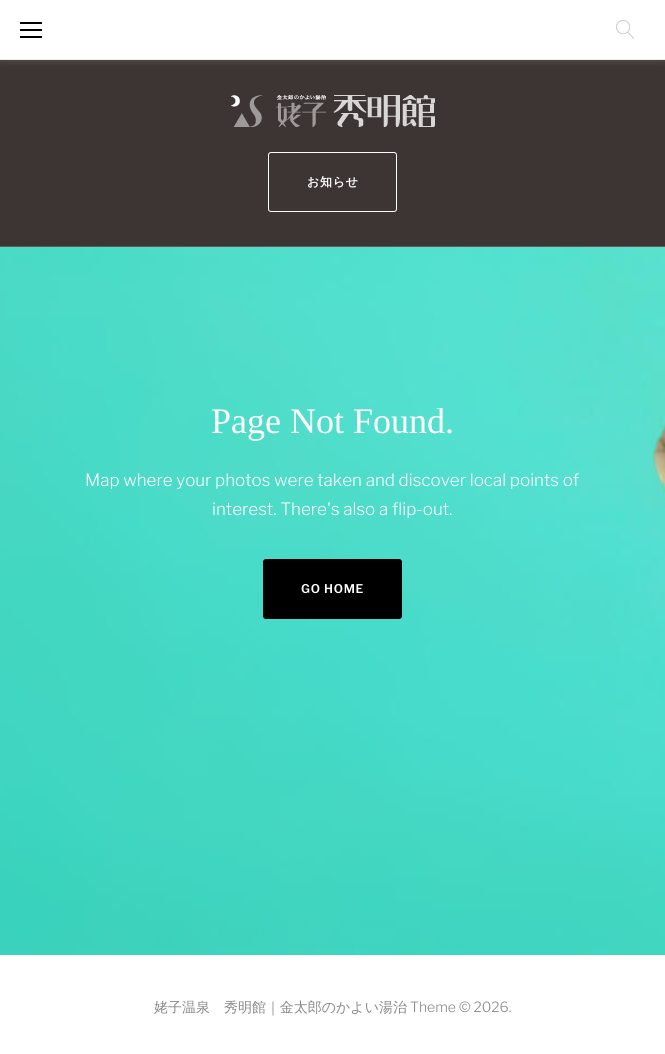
import math
import cairo

surface = cairo.ImageSurface(cairo.FORMAT_RGB24, 665, 1054)
cr = cairo.Context(surface)
options = cairo.FontOptions()
options.set_hint_metrics(cairo.HINT_METRICS_OFF)
options.set_hint_style(cairo.HINT_STYLE_NONE)
cr.set_font_options(options)
cr.set_miter_limit(4)


def rgb(code):
    cr.set_source_rgb(*(v / 255 for v in bytes.fromhex(code[-6:])))


def tracked(x, y, s, letter, word):
    cr.move_to(x, y)
    for ch in s:
        cr.show_text(ch)
        cr.rel_move_to(letter + word * (ch == ' '), 0)


def rrect(x, y, w, h, r):
    cr.new_sub_path()
    for i, (u, v) in enumerate([(x + w - r, y + h - r), (x + r, y + h - r), (x + r, y + r), (x + w - r, y + r)]):
        cr.arc(u, v, r, i * math.pi / 2, (i + 1) * math.pi / 2)
    cr.close_path()


def soft_shadow(x, y, w, h, r, blur, alpha):
    cr.push_group_with_content(cairo.CONTENT_ALPHA)
    cr.set_operator(cairo.OPERATOR_SOURCE)
    for i in range(15, -16, -2):
        e = blur * i / 6
        if min(w, h) + 2 * e > 0:
            cr.set_source_rgba(0, 0, 0, alpha * math.erfc((i - 1) / 8.5) / 2)
            rrect(x - e, y - e, w + 2 * e, h + 2 * e, max(0, min(r + e + blur * .6, min(w, h) / 2 + e)))
            cr.fill()
    cr.mask(cr.pop_group())


def image(path, x, y, w, h):
    cr.save()
    cr.set_source_surface(cairo.ImageSurface.create_from_png(path), x, y)
    cr.rectangle(x, y, w, h)
    cr.fill()
    cr.restore()


rgb("#ffffff")
cr.paint()
rgb("#3d3534")
cr.rectangle(0, 60, 665, 186)
cr.fill()
rgb("#888888")
soft_shadow(0, 2, 665, 60, 0, 3, 0.26)
for x, y, w, h, color in [
    (0, 0, 665, 59, "#ffffff"),
    (0, 59, 665, 1, "#ececee"),
    (20, 29, 22, 2, "#000000"),
    (20, 22, 22, 2, "#000000"),
    (20, 36, 22, 2, "#000000"),
]:
    rgb(color)
    cr.rectangle(x, y, w, h)
    cr.fill()
image("img/1.png", 616, 20, 18, 19)
image("img/2.png", 231, 95, 204, 32)
rrect(268.5, 152.5, 128, 59, 2.5)
rgb("#ffffff")
cr.set_line_width(1)
cr.stroke()
rgb("#605a59")
cr.rectangle(0, 246, 665, 1)
cr.fill()
image("img/3.png", 0, 247, 665, 708)
rgb("#000000")
rrect(263.5, 559.5, 138, 59, 2.5)
cr.fill_preserve()
cr.stroke()
cr.select_font_face("WenQuanYi Zen Hei", cairo.FONT_SLANT_NORMAL, cairo.FONT_WEIGHT_BOLD)
cr.set_font_size(12)
rgb("#ffffff")
tracked(307, 186, "お知らせ", 0.75, 0)
cr.select_font_face("Liberation Serif")
cr.set_font_size(36)
cr.move_to(211, 433)
cr.show_text("Page Not Found.")
cr.select_font_face("Libre Franklin Light")
cr.set_font_size(17)
cr.move_to(85, 486)
cr.show_text("Map where your photos were taken and discover local points of")
cr.move_to(212, 515)
cr.show_text("interest. There's also a flip-out.")
cr.select_font_face("Libre Franklin SemiBold")
cr.set_font_size(12)
tracked(301, 593, "GO HOME", 0.75, 0)
cr.select_font_face("WenQuanYi Zen Hei Medium")
cr.set_font_size(14)
rgb("#888888")
cr.move_to(154, 1012)
cr.show_text("姥子温泉　秀明館｜金太郎のかよい湯治")
cr.select_font_face("Libre Franklin Light")
cr.move_to(410, 1012)
cr.show_text("Theme © 2026.")
surface.write_to_png("page.png")
